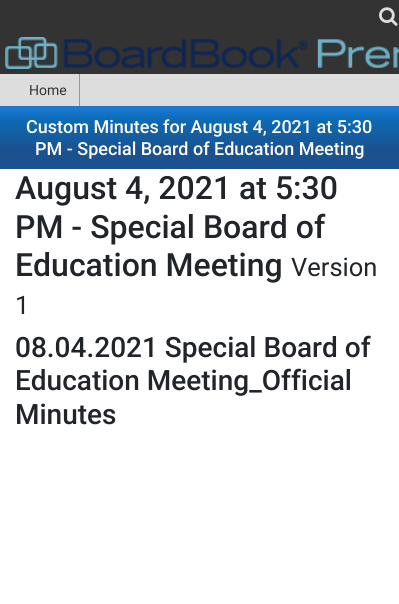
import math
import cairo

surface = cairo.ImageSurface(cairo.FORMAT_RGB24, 399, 604)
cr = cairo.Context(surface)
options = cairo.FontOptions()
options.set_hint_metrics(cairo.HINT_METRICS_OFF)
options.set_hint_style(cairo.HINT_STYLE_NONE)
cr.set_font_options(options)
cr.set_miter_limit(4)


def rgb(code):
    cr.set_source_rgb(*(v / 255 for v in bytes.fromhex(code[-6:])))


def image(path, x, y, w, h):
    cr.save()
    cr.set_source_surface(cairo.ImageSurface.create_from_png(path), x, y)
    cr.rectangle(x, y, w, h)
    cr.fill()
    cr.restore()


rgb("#ffffff")
cr.paint()
rgb("#333333")
cr.rectangle(0, 0, 399, 74)
cr.fill()
image("img/1.png", 379, 7, 19, 19)
image("img/2.png", 5, 37, 394, 32)
rgb("#dddddd")
cr.rectangle(0, 74, 399, 32)
cr.fill()
rgb("#979797")
cr.rectangle(79, 74, 1, 32)
cr.fill()
gradient = cairo.LinearGradient(200, 169, 200, 106)
gradient.add_color_stop_rgba(0.29, 0.106, 0.318, 0.561, 1)
gradient.add_color_stop_rgba(0.79, 0.051, 0.42, 0.71, 1)
gradient.add_color_stop_rgba(0.95, 0.098, 0.471, 0.816, 1)
cr.set_source(gradient)
cr.rectangle(0, 106, 399, 63)
cr.fill()
cr.select_font_face("Roboto")
cr.set_font_size(14)
rgb("#333333")
cr.move_to(29, 95)
cr.show_text("Home")
cr.select_font_face("Roboto Medium")
cr.set_font_size(18)
rgb("#ffffff")
cr.move_to(26, 133)
cr.show_text("Custom Minutes for August 4, 2021 at 5:30")
cr.move_to(35, 155)
cr.show_text("PM - Special Board of Education Meeting")
cr.set_font_size(32)
rgb("#212529")
for x, y, s in [
    (15, 199, "August 4, 2021 at 5:30"),
    (15, 238, "PM - Special Board of"),
    (15, 276, "Education Meeting"),
]:
    cr.move_to(x, y)
    cr.show_text(s)
cr.select_font_face("Roboto")
cr.set_font_size(25.5)
cr.move_to(291, 276)
cr.show_text("Version")
cr.move_to(15, 314)
cr.show_text("1")
cr.select_font_face("Roboto Medium")
cr.set_font_size(28)
for x, y, s in [
    (15, 357, "08.04.2021 Special Board of"),
    (15, 390, "Education Meeting_Official"),
    (15, 424, "Minutes"),
]:
    cr.move_to(x, y)
    cr.show_text(s)
surface.write_to_png("page.png")
